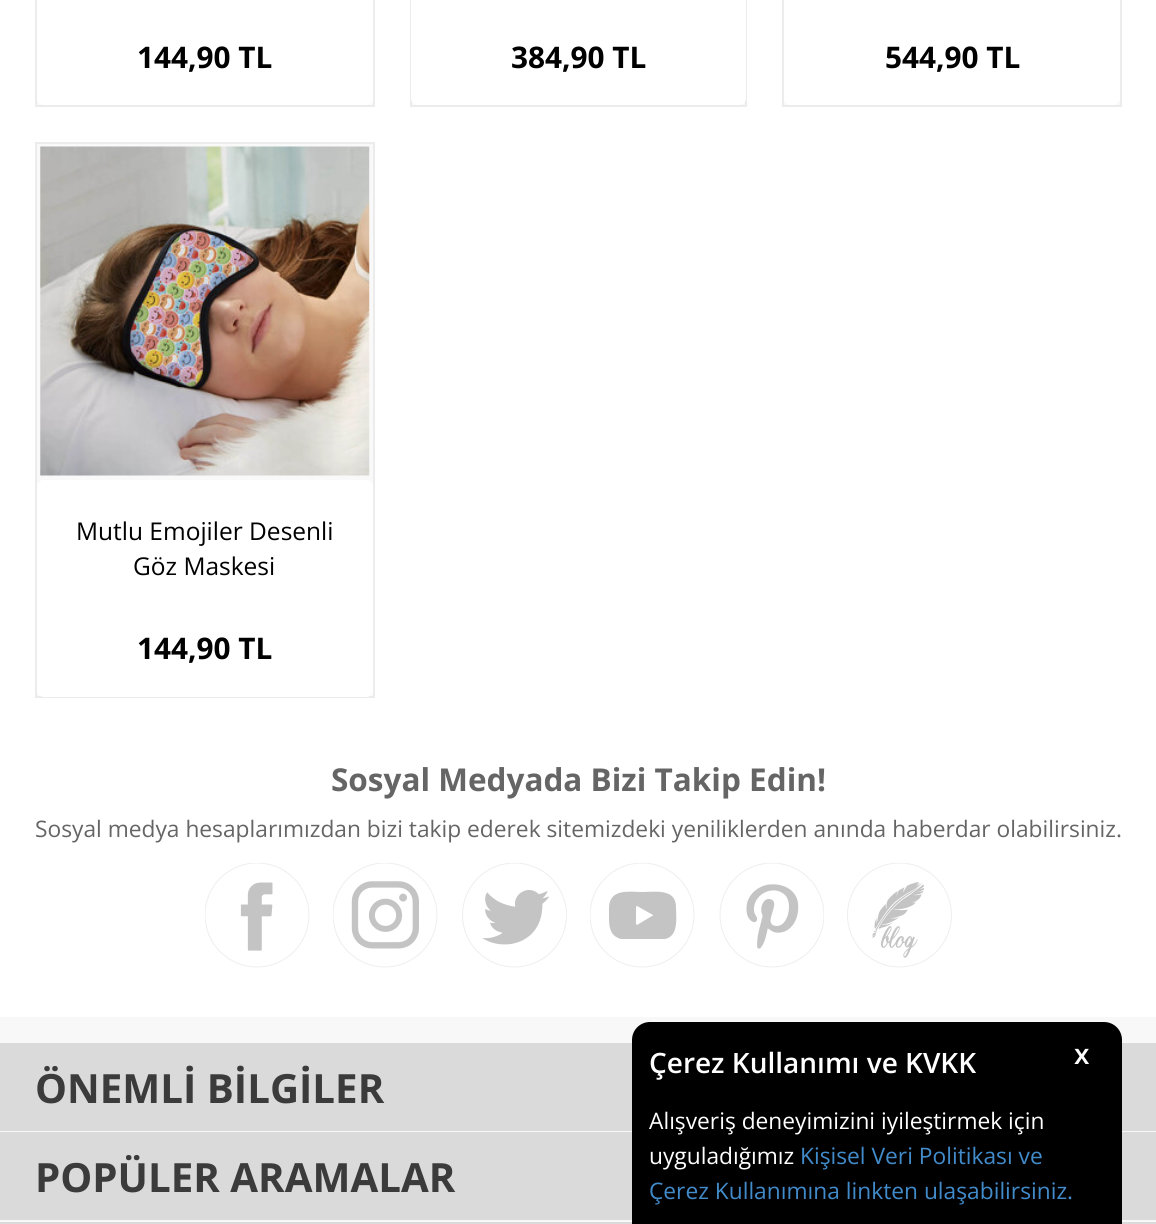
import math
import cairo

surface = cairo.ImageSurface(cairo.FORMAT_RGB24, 1156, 1224)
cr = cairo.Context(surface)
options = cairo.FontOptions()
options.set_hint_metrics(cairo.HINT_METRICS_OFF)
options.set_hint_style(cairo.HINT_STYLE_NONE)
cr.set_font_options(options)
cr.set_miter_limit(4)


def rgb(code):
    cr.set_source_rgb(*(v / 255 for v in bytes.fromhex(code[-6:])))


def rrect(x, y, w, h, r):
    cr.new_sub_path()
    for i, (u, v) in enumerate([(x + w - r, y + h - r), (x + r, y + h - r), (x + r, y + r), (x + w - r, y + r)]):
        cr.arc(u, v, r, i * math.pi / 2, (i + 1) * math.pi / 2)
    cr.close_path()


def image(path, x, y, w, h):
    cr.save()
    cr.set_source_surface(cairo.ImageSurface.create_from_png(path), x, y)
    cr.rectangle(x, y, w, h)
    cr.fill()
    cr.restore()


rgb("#ffffff")
cr.paint()
rgb("#f9f9f9")
cr.rectangle(37, 98, 336, 7)
cr.fill()
cr.rectangle(36, -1, 338, 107)
rgb("#ececec")
cr.stroke()
rgb("#ffffff")
rrect(37, -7, 336, 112, 7)
cr.fill()
rgb("#f9f9f9")
cr.rectangle(412, 101, 333, 4)
cr.fill()
cr.rectangle(411, -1, 335, 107)
rgb("#ececec")
cr.stroke()
rgb("#ffffff")
rrect(411, -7, 335, 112, 7)
cr.fill()
rgb("#f9f9f9")
cr.rectangle(784, 98, 336, 7)
cr.fill()
cr.rectangle(783, -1, 338, 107)
rgb("#ececec")
cr.stroke()
rgb("#ffffff")
rrect(784, -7, 336, 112, 7)
cr.fill()
rgb("#f9f9f9")
cr.rectangle(36, 143, 338, 554)
cr.fill_preserve()
rgb("#ececec")
cr.stroke()
image("img/1.png", 40, 146, 330, 330)
rgb("#ffffff")
rrect(37, 480, 336, 217, 7)
cr.fill()
image("img/2.png", 205, 863, 105, 105)
image("img/3.png", 333, 863, 105, 105)
image("img/4.png", 462, 863, 105, 105)
cr.save()
cr.rectangle(590, 863, 105, 105)
cr.clip()
cr.arc(642, 915, 52, 0, 2 * math.pi)
rgb("#eeeeee")
cr.set_line_width(1)
cr.stroke()
cr.restore()
image("img/5.png", 719, 863, 105, 105)
image("img/6.png", 847, 863, 105, 105)
rgb("#c4c4c4")
cr.new_path()
cr.move_to(676, 907)
cr.curve_to(676, 888, 654, 892, 643, 892)
cr.curve_to(630, 892, 610, 888, 609, 907)
cr.line_to(609, 918)
cr.curve_to(609, 927, 610, 936, 621, 939)
cr.line_to(665, 939)
cr.curve_to(679, 936, 676, 918, 676, 907)
cr.close_path()
cr.move_to(652, 916)
cr.line_to(637, 925)
cr.curve_to(637, 925, 636, 924, 636, 924)
cr.line_to(636, 907)
cr.curve_to(636, 906, 637, 906, 637, 906)
cr.line_to(653, 915)
cr.curve_to(653, 915, 653, 916, 652, 916)
cr.close_path()
cr.fill()
for x, y, w, h, color in [
    (0, 1017, 1156, 205, "#f8f8f8"),
    (0, 1043, 1156, 88, "#dadada"),
    (0, 1132, 1156, 88, "#dadada"),
    (0, 1222, 1156, 2, "#dadada"),
]:
    rgb(color)
    cr.rectangle(x, y, w, h)
    cr.fill()
rgb("#000000")
cr.new_path()
cr.move_to(650, 1022)
cr.line_to(1104, 1022)
cr.curve_to(1114, 1022, 1122, 1030, 1122, 1040)
cr.line_to(1122, 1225)
cr.line_to(632, 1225)
cr.line_to(632, 1040)
cr.curve_to(632, 1030, 640, 1022, 650, 1022)
cr.close_path()
cr.fill()
cr.select_font_face("Open Sans", cairo.FONT_SLANT_NORMAL, cairo.FONT_WEIGHT_BOLD)
cr.set_font_size(29.75)
for x, y, s in [
    (137, 68, "144,90 TL"),
    (511, 68, "384,90 TL"),
    (885, 68, "544,90 TL"),
]:
    cr.move_to(x, y)
    cr.show_text(s)
cr.select_font_face("Open Sans")
cr.set_font_size(24.5)
cr.move_to(76, 540)
cr.show_text("Mutlu Emojiler Desenli")
cr.move_to(133, 575)
cr.show_text("Göz Maskesi")
cr.select_font_face("Open Sans", cairo.FONT_SLANT_NORMAL, cairo.FONT_WEIGHT_BOLD)
cr.set_font_size(29.75)
cr.move_to(137, 659)
cr.show_text("144,90 TL")
cr.set_font_size(31.5)
rgb("#656565")
cr.move_to(331, 791)
cr.show_text("Sosyal Medyada Bizi Takip Edin!")
cr.select_font_face("Open Sans")
cr.set_font_size(22.75)
cr.move_to(35, 837)
cr.show_text("Sosyal medya hesaplarımızdan bizi takip ederek sitemizdeki yeniliklerden anında haberdar olabilirsiniz.")
cr.select_font_face("Open Sans", cairo.FONT_SLANT_NORMAL, cairo.FONT_WEIGHT_BOLD)
cr.set_font_size(40.25)
rgb("#3b3b3b")
cr.move_to(35, 1103)
cr.show_text("ÖNEMLİ BİLGİLER")
cr.move_to(35, 1192)
cr.show_text("POPÜLER ARAMALAR")
cr.select_font_face("Open Sans SemiBold")
cr.set_font_size(28)
rgb("#ffffff")
cr.move_to(649, 1073)
cr.show_text("Çerez Kullanımı ve KVKK")
cr.move_to(1074, 1064)
cr.show_text("x")
cr.select_font_face("Open Sans")
cr.set_font_size(22.75)
cr.move_to(649, 1129)
cr.show_text("Alışveriş deneyimizini iyileştirmek için")
cr.move_to(649, 1164)
cr.show_text("uyguladığımız")
rgb("#428bca")
cr.move_to(800, 1164)
cr.show_text("Kişisel Veri Politikası ve")
cr.move_to(649, 1199)
cr.show_text("Çerez Kullanımına linkten ulaşabilirsiniz.")
surface.write_to_png("page.png")
